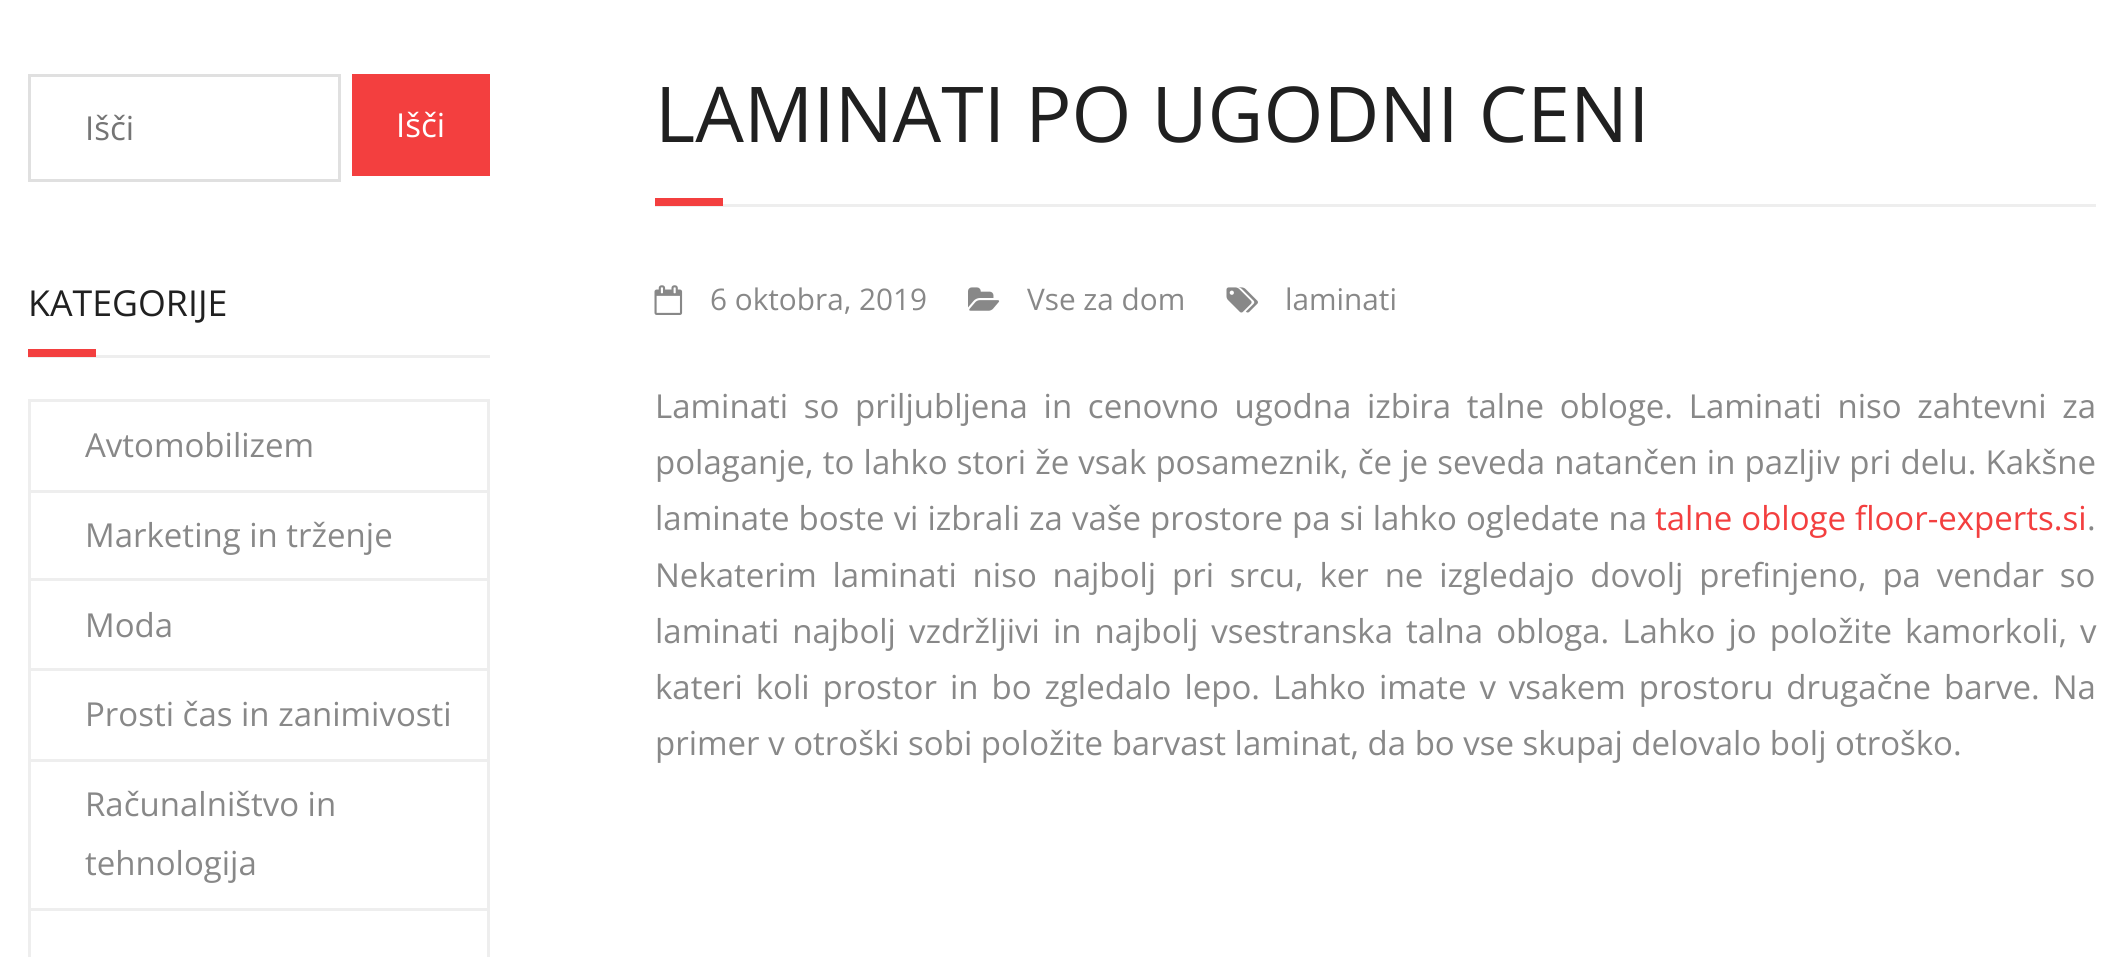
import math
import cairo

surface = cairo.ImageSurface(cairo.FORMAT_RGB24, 2122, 957)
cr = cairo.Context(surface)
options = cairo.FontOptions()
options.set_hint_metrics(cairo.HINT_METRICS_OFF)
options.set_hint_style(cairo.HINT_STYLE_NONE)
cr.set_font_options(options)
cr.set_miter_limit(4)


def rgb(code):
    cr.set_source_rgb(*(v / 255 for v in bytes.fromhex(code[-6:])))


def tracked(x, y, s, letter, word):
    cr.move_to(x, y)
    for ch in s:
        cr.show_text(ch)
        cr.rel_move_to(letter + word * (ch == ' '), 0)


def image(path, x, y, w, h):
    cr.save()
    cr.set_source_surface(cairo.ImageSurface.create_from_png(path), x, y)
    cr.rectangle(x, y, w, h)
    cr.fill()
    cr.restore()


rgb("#ffffff")
cr.paint()
cr.rectangle(29.5, 75.5, 310, 105)
rgb("#e0e0e0")
cr.set_line_width(3)
cr.stroke()
for x, y, w, h, color in [
    (352, 74, 138, 102, "#f33f3f"),
    (28, 355, 462, 3, "#eeeeee"),
    (28, 349, 68, 8, "#f33f3f"),
    (28, 399, 462, 3, "#eeeeee"),
    (487, 399, 3, 558, "#eeeeee"),
    (28, 399, 3, 558, "#eeeeee"),
    (30, 490, 457, 3, "#eeeeee"),
    (30, 578, 457, 3, "#eeeeee"),
    (30, 668, 457, 3, "#eeeeee"),
    (30, 759, 457, 3, "#eeeeee"),
    (30, 908, 457, 3, "#eeeeee"),
    (655, 204, 1441, 3, "#eeeeee"),
    (655, 198, 68, 8, "#f33f3f"),
]:
    rgb(color)
    cr.rectangle(x, y, w, h)
    cr.fill()
image("img/1.png", 654, 285, 29, 30)
image("img/2.png", 968, 287, 32, 24)
image("img/3.png", 1226, 287, 32, 26)
cr.select_font_face("Open Sans")
cr.set_font_size(33)
rgb("#757575")
cr.move_to(85, 140)
cr.show_text("Išči")
rgb("#ffffff")
cr.move_to(396, 137)
cr.show_text("Išči")
cr.set_font_size(35.75)
rgb("#202020")
cr.move_to(28, 316)
cr.show_text("KATEGORIJE")
cr.set_font_size(33)
rgb("#888888")
for x, y, s in [
    (85, 457, "Avtomobilizem"),
    (85, 547, "Marketing in trženje"),
    (85, 637, "Moda"),
    (85, 726, "Prosti čas in zanimivosti"),
    (85, 816, "Računalništvo in"),
    (85, 875, "tehnologija"),
]:
    cr.move_to(x, y)
    cr.show_text(s)
cr.set_font_size(77)
rgb("#202020")
cr.move_to(655, 142)
cr.show_text("LAMINATI PO UGODNI CENI")
cr.set_font_size(29.75)
rgb("#888888")
for x, y, s in [
    (710, 310, "6 oktobra, 2019"),
    (1027, 310, "Vse za dom"),
    (1285, 310, "laminati"),
]:
    cr.move_to(x, y)
    cr.show_text(s)
cr.set_font_size(33)
tracked(655, 418, "Laminati so priljubljena in cenovno ugodna izbira talne obloge. Laminati niso zahtevni za", 0, 7.1)
tracked(655, 474, "polaganje, to lahko stori že vsak posameznik, če je seveda natančen in pazljiv pri delu. Kakšne", 0, 0.6)
tracked(655, 530, "laminate boste vi izbrali za vaše prostore pa si lahko ogledate na", 0, 0.5)
rgb("#f33f3f")
tracked(1655, 530, "talne obloge floor-experts.si", 0, 0.5)
rgb("#888888")
cr.move_to(2087, 530)
cr.show_text(".")
tracked(655, 587, "Nekaterim laminati niso najbolj pri srcu, ker ne izgledajo dovolj prefinjeno, pa vendar so", 0, 7.25)
tracked(655, 643, "laminati najbolj vzdržljivi in najbolj vsestranska talna obloga. Lahko jo položite kamorkoli, v", 0, 4.5)
tracked(655, 699, "kateri koli prostor in bo zgledalo lepo. Lahko imate v vsakem prostoru drugačne barve. Na", 0, 4.4)
cr.move_to(655, 755)
cr.show_text("primer v otroški sobi položite barvast laminat, da bo vse skupaj delovalo bolj otroško.")
surface.write_to_png("page.png")
